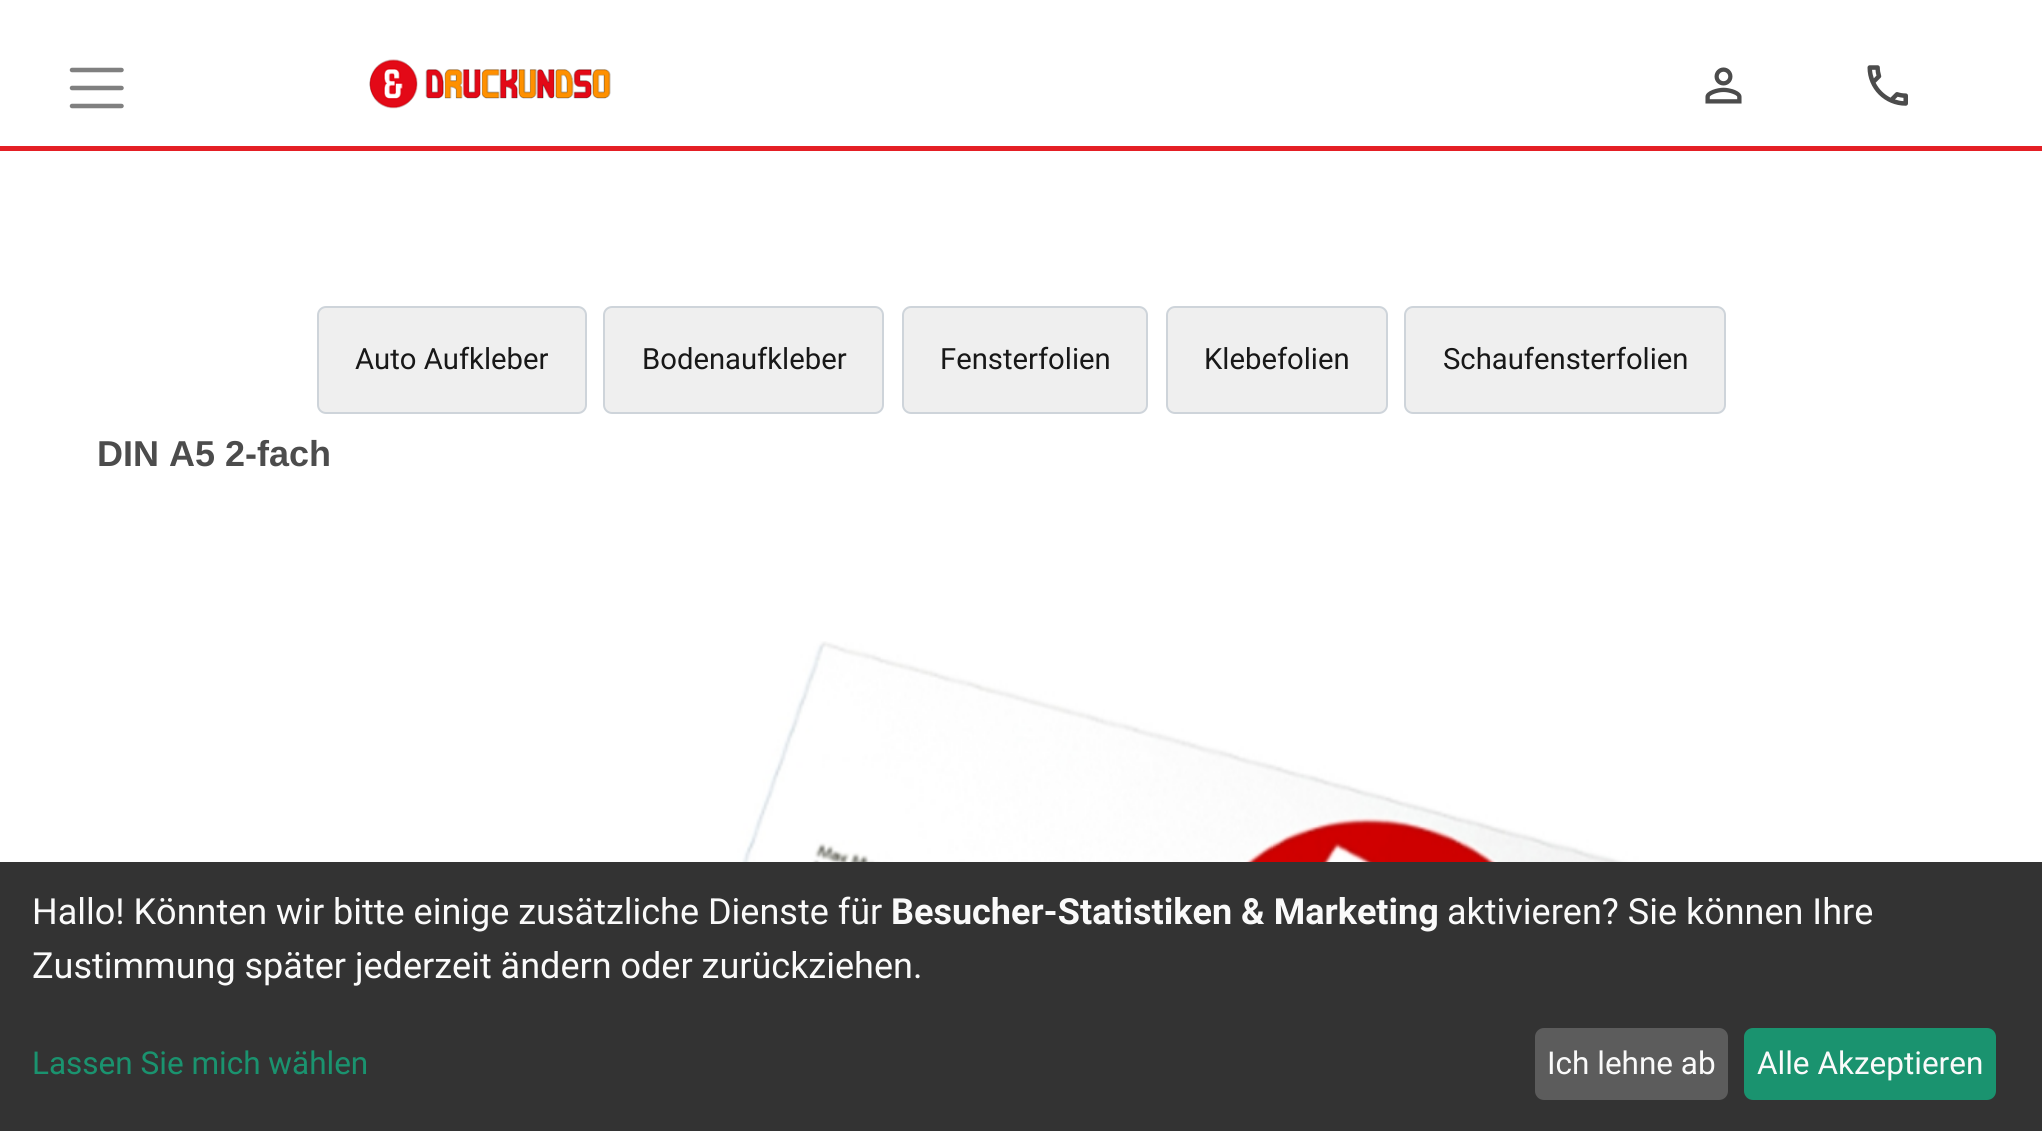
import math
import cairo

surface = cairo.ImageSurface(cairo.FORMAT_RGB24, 2042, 1131)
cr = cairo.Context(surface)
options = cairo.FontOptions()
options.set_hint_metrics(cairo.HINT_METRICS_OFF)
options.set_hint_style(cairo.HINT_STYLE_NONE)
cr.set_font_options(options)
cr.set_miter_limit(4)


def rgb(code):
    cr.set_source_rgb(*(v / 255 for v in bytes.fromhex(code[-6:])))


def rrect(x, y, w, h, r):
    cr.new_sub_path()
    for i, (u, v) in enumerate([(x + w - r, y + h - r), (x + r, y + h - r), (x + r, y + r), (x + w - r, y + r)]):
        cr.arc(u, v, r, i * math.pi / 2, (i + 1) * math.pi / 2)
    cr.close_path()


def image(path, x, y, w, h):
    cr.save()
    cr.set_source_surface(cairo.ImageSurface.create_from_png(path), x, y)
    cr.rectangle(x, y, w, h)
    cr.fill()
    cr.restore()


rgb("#ffffff")
cr.paint()
rgb("#e41f25")
cr.rectangle(0, 146, 2042, 5)
cr.fill()
cr.new_path()
cr.move_to(72, 70)
cr.line_to(121.5, 70)
cr.move_to(72, 88)
cr.line_to(121.5, 88)
cr.move_to(72, 106)
cr.line_to(121.5, 106)
rgb("#808080")
cr.set_line_width(4.5)
cr.set_line_cap(cairo.LINE_CAP_ROUND)
cr.stroke()
image("img/1.png", 369, 59, 242, 50)
image("img/2.png", 1705, 67, 37, 37)
image("img/3.png", 1867, 65, 41, 41)
rgb("#efefef")
rrect(318, 307, 268, 106, 8)
cr.fill_preserve()
rgb("#ced4da")
cr.set_line_width(2)
cr.set_line_cap(cairo.LINE_CAP_BUTT)
cr.stroke()
rgb("#efefef")
rrect(604, 307, 279, 106, 8)
cr.fill_preserve()
rgb("#ced4da")
cr.stroke()
rgb("#efefef")
rrect(903, 307, 244, 106, 8)
cr.fill_preserve()
rgb("#ced4da")
cr.stroke()
rgb("#efefef")
rrect(1167, 307, 220, 106, 8)
cr.fill_preserve()
rgb("#ced4da")
cr.stroke()
rgb("#efefef")
rrect(1405, 307, 320, 106, 8)
cr.fill_preserve()
rgb("#ced4da")
cr.stroke()
image("img/4.png", 646, 641, 1005, 221)
rgb("#333333")
cr.rectangle(0, 862, 2042, 269)
cr.fill()
rgb("#5c5c5c")
rrect(1535, 1028, 193, 72, 9)
cr.fill()
rgb("#1a936f")
rrect(1744, 1028, 252, 72, 9)
cr.fill()
cr.select_font_face("Roboto")
cr.set_font_size(29.25)
rgb("#181818")
for x, y, s in [
    (355, 369, "Auto Aufkleber"),
    (642, 369, "Bodenaufkleber"),
    (940, 369, "Fensterfolien"),
    (1204, 369, "Klebefolien"),
    (1443, 369, "Schaufensterfolien"),
]:
    cr.move_to(x, y)
    cr.show_text(s)
cr.select_font_face("Liberation Sans", cairo.FONT_SLANT_NORMAL, cairo.FONT_WEIGHT_BOLD)
cr.set_font_size(36)
rgb("#4c4c4c")
cr.move_to(97, 466)
cr.show_text("DIN A5 2-fach")
cr.select_font_face("Roboto")
rgb("#fafafa")
cr.move_to(32, 924)
cr.show_text("Hallo! Könnten wir bitte einige zusätzliche Dienste für")
cr.select_font_face("Roboto", cairo.FONT_SLANT_NORMAL, cairo.FONT_WEIGHT_BOLD)
cr.move_to(891, 924)
cr.show_text("Besucher-Statistiken & Marketing")
cr.select_font_face("Roboto")
cr.move_to(1447, 924)
cr.show_text("aktivieren? Sie können Ihre")
cr.move_to(32, 978)
cr.show_text("Zustimmung später jederzeit ändern oder zurückziehen.")
cr.set_font_size(31.5)
rgb("#1a936f")
cr.move_to(32, 1074)
cr.show_text("Lassen Sie mich wählen")
rgb("#fafafa")
cr.move_to(1547, 1074)
cr.show_text("Ich lehne ab")
cr.move_to(1757, 1074)
cr.show_text("Alle Akzeptieren")
surface.write_to_png("page.png")
